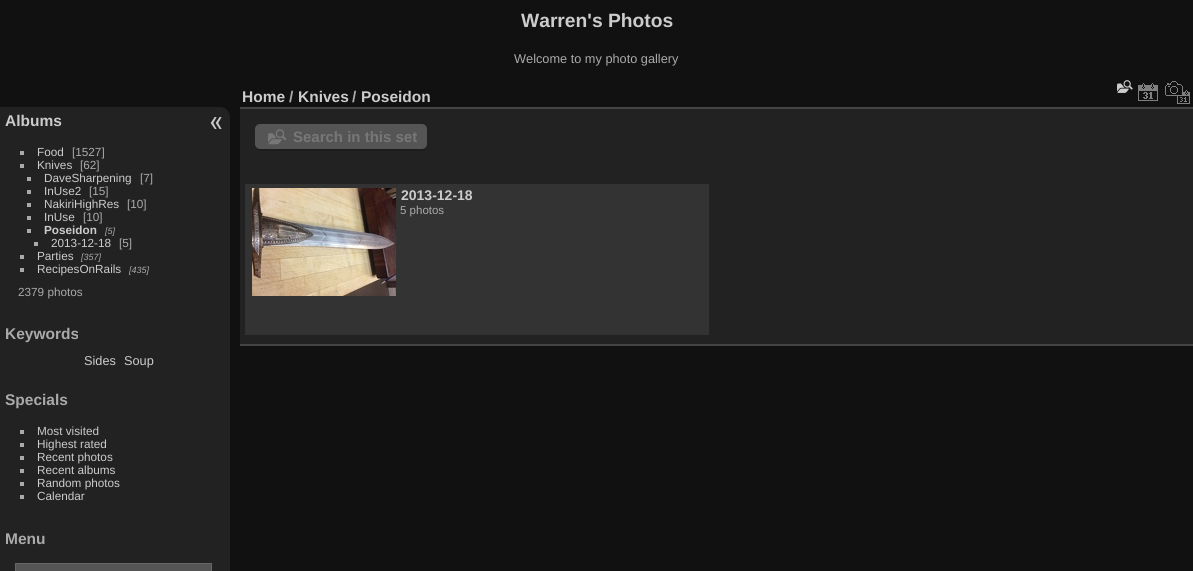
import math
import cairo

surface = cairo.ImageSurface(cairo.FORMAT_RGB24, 1193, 571)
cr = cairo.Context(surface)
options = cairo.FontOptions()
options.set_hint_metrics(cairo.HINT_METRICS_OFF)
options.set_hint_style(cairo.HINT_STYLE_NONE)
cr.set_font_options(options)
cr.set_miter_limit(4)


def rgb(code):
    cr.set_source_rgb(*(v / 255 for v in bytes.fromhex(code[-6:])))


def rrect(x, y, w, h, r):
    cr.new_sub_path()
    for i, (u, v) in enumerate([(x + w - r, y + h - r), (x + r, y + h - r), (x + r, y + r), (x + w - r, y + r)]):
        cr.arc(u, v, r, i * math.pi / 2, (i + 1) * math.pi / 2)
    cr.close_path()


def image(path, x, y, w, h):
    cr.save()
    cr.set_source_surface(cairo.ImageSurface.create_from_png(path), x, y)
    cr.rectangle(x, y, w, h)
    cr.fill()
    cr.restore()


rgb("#111111")
cr.paint()
rgb("#222222")
cr.new_path()
cr.move_to(0, 107)
cr.line_to(220, 107)
cr.curve_to(225.5, 107, 230, 111.5, 230, 117)
cr.line_to(230, 571)
cr.curve_to(230, 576.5, 225.5, 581, 220, 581)
cr.line_to(0, 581)
cr.close_path()
cr.fill()
for x, y, w, h, color in [
    (20, 151, 4, 4, "#aaaaaa"),
    (20, 164, 4, 4, "#aaaaaa"),
    (27, 177, 4, 4, "#aaaaaa"),
    (27, 190, 4, 4, "#aaaaaa"),
    (27, 203, 4, 4, "#aaaaaa"),
    (27, 216, 4, 4, "#aaaaaa"),
    (27, 229, 4, 4, "#aaaaaa"),
    (34, 242, 4, 4, "#aaaaaa"),
    (20, 255, 4, 4, "#aaaaaa"),
    (20, 268, 4, 4, "#aaaaaa"),
    (20, 430, 4, 4, "#aaaaaa"),
    (20, 443, 4, 4, "#aaaaaa"),
    (20, 456, 4, 4, "#aaaaaa"),
    (20, 469, 4, 4, "#aaaaaa"),
    (20, 482, 4, 4, "#aaaaaa"),
    (20, 495, 4, 4, "#aaaaaa"),
]:
    rgb(color)
    cr.rectangle(x, y, w, h)
    cr.fill()
rgb("#555555")
cr.rectangle(15.5, 563.5, 196, 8)
cr.fill_preserve()
rgb("#666666")
cr.set_line_width(1)
cr.stroke()
image("img/1.png", 210, 117, 12, 12)
for x, y, w, h, color in [
    (240, 109, 953, 235, "#222222"),
    (240, 344, 953, 2, "#444444"),
    (240, 107, 953, 2, "#444444"),
]:
    rgb(color)
    cr.rectangle(x, y, w, h)
    cr.fill()
image("img/2.png", 1117, 80, 16, 13)
image("img/3.png", 1138, 83, 20, 18)
image("img/4.png", 1165, 81, 25, 23)
rgb("#1d1d1d")
cr.new_path()
cr.move_to(255, 144)
cr.line_to(255, 146)
cr.curve_to(255, 149, 257, 151, 260, 151)
cr.line_to(422, 151)
cr.curve_to(425, 151, 427, 149, 427, 146)
cr.line_to(427, 144)
cr.curve_to(427, 147, 425, 149, 422, 149)
cr.line_to(260, 149)
cr.curve_to(257, 149, 255, 147, 255, 144)
cr.close_path()
cr.fill()
rgb("#555555")
rrect(255, 124, 172, 25, 5)
cr.fill()
image("img/5.png", 268, 129, 19, 16)
rgb("#333333")
cr.rectangle(245, 184, 464, 151)
cr.fill()
image("img/6.png", 252, 188, 144, 108)
cr.select_font_face("Liberation Sans", cairo.FONT_SLANT_NORMAL, cairo.FONT_WEIGHT_BOLD)
cr.set_font_size(19.25)
rgb("#cccccc")
cr.move_to(521, 27)
cr.show_text("Warren's Photos")
cr.select_font_face("Liberation Sans")
cr.set_font_size(12.75)
rgb("#aaaaaa")
cr.move_to(514, 63)
cr.show_text("Welcome to my photo gallery")
cr.select_font_face("Liberation Sans", cairo.FONT_SLANT_NORMAL, cairo.FONT_WEIGHT_BOLD)
cr.set_font_size(15.5)
rgb("#cccccc")
cr.move_to(5, 126)
cr.show_text("Albums")
cr.select_font_face("Liberation Sans")
cr.set_font_size(11.75)
cr.move_to(37, 156)
cr.show_text("Food")
rgb("#aaaaaa")
cr.move_to(72, 156)
cr.show_text("[1527]")
rgb("#cccccc")
cr.move_to(37, 169)
cr.show_text("Knives")
rgb("#aaaaaa")
cr.move_to(80, 169)
cr.show_text("[62]")
rgb("#cccccc")
cr.move_to(44, 182)
cr.show_text("DaveSharpening")
rgb("#aaaaaa")
cr.move_to(140, 182)
cr.show_text("[7]")
rgb("#cccccc")
cr.move_to(44, 195)
cr.show_text("InUse2")
rgb("#aaaaaa")
cr.move_to(89, 195)
cr.show_text("[15]")
rgb("#cccccc")
cr.move_to(44, 208)
cr.show_text("NakiriHighRes")
rgb("#aaaaaa")
cr.move_to(127, 208)
cr.show_text("[10]")
rgb("#cccccc")
cr.move_to(44, 221)
cr.show_text("InUse")
rgb("#aaaaaa")
cr.move_to(83, 221)
cr.show_text("[10]")
cr.select_font_face("Liberation Sans", cairo.FONT_SLANT_NORMAL, cairo.FONT_WEIGHT_BOLD)
rgb("#cccccc")
cr.move_to(44, 234)
cr.show_text("Poseidon")
cr.select_font_face("Liberation Sans", cairo.FONT_SLANT_ITALIC)
cr.set_font_size(9)
rgb("#aaaaaa")
cr.move_to(105, 234)
cr.show_text("[5]")
cr.select_font_face("Liberation Sans")
cr.set_font_size(11.75)
rgb("#cccccc")
cr.move_to(51, 247)
cr.show_text("2013-12-18")
rgb("#aaaaaa")
cr.move_to(119, 247)
cr.show_text("[5]")
rgb("#cccccc")
cr.move_to(37, 260)
cr.show_text("Parties")
cr.select_font_face("Liberation Sans", cairo.FONT_SLANT_ITALIC)
cr.set_font_size(9)
rgb("#aaaaaa")
cr.move_to(81, 260)
cr.show_text("[357]")
cr.select_font_face("Liberation Sans")
cr.set_font_size(11.75)
rgb("#cccccc")
cr.move_to(37, 273)
cr.show_text("RecipesOnRails")
cr.select_font_face("Liberation Sans", cairo.FONT_SLANT_ITALIC)
cr.set_font_size(9)
rgb("#aaaaaa")
cr.move_to(129, 273)
cr.show_text("[435]")
cr.select_font_face("Liberation Sans")
cr.set_font_size(11.75)
cr.move_to(18, 296)
cr.show_text("2379 photos")
cr.select_font_face("Liberation Sans", cairo.FONT_SLANT_NORMAL, cairo.FONT_WEIGHT_BOLD)
cr.set_font_size(15.5)
cr.move_to(5, 339)
cr.show_text("Keywords")
cr.select_font_face("Liberation Sans")
cr.set_font_size(12.75)
rgb("#cccccc")
cr.move_to(84, 365)
cr.show_text("Sides")
cr.move_to(124, 365)
cr.show_text("Soup")
cr.select_font_face("Liberation Sans", cairo.FONT_SLANT_NORMAL, cairo.FONT_WEIGHT_BOLD)
cr.set_font_size(15.5)
rgb("#aaaaaa")
cr.move_to(5, 405)
cr.show_text("Specials")
cr.select_font_face("Liberation Sans")
cr.set_font_size(11.75)
rgb("#cccccc")
for x, y, s in [
    (37, 435, "Most visited"),
    (37, 448, "Highest rated"),
    (37, 461, "Recent photos"),
    (37, 474, "Recent albums"),
    (37, 487, "Random photos"),
    (37, 500, "Calendar"),
]:
    cr.move_to(x, y)
    cr.show_text(s)
cr.select_font_face("Liberation Sans", cairo.FONT_SLANT_NORMAL, cairo.FONT_WEIGHT_BOLD)
cr.set_font_size(15.5)
rgb("#aaaaaa")
cr.move_to(5, 544)
cr.show_text("Menu")
rgb("#cccccc")
cr.move_to(242, 102)
cr.show_text("Home")
rgb("#aaaaaa")
cr.move_to(289, 102)
cr.show_text("/")
rgb("#cccccc")
cr.move_to(298, 102)
cr.show_text("Knives")
rgb("#aaaaaa")
cr.move_to(352, 102)
cr.show_text("/")
rgb("#cccccc")
cr.move_to(361, 102)
cr.show_text("Poseidon")
cr.set_font_size(15)
rgb("#777777")
cr.move_to(293, 142)
cr.show_text("Search in this set")
cr.set_font_size(14)
rgb("#cccccc")
cr.move_to(401, 200)
cr.show_text("2013-12-18")
cr.select_font_face("Liberation Sans")
cr.set_font_size(11.5)
rgb("#aaaaaa")
cr.move_to(400, 214)
cr.show_text("5 photos")
surface.write_to_png("page.png")
